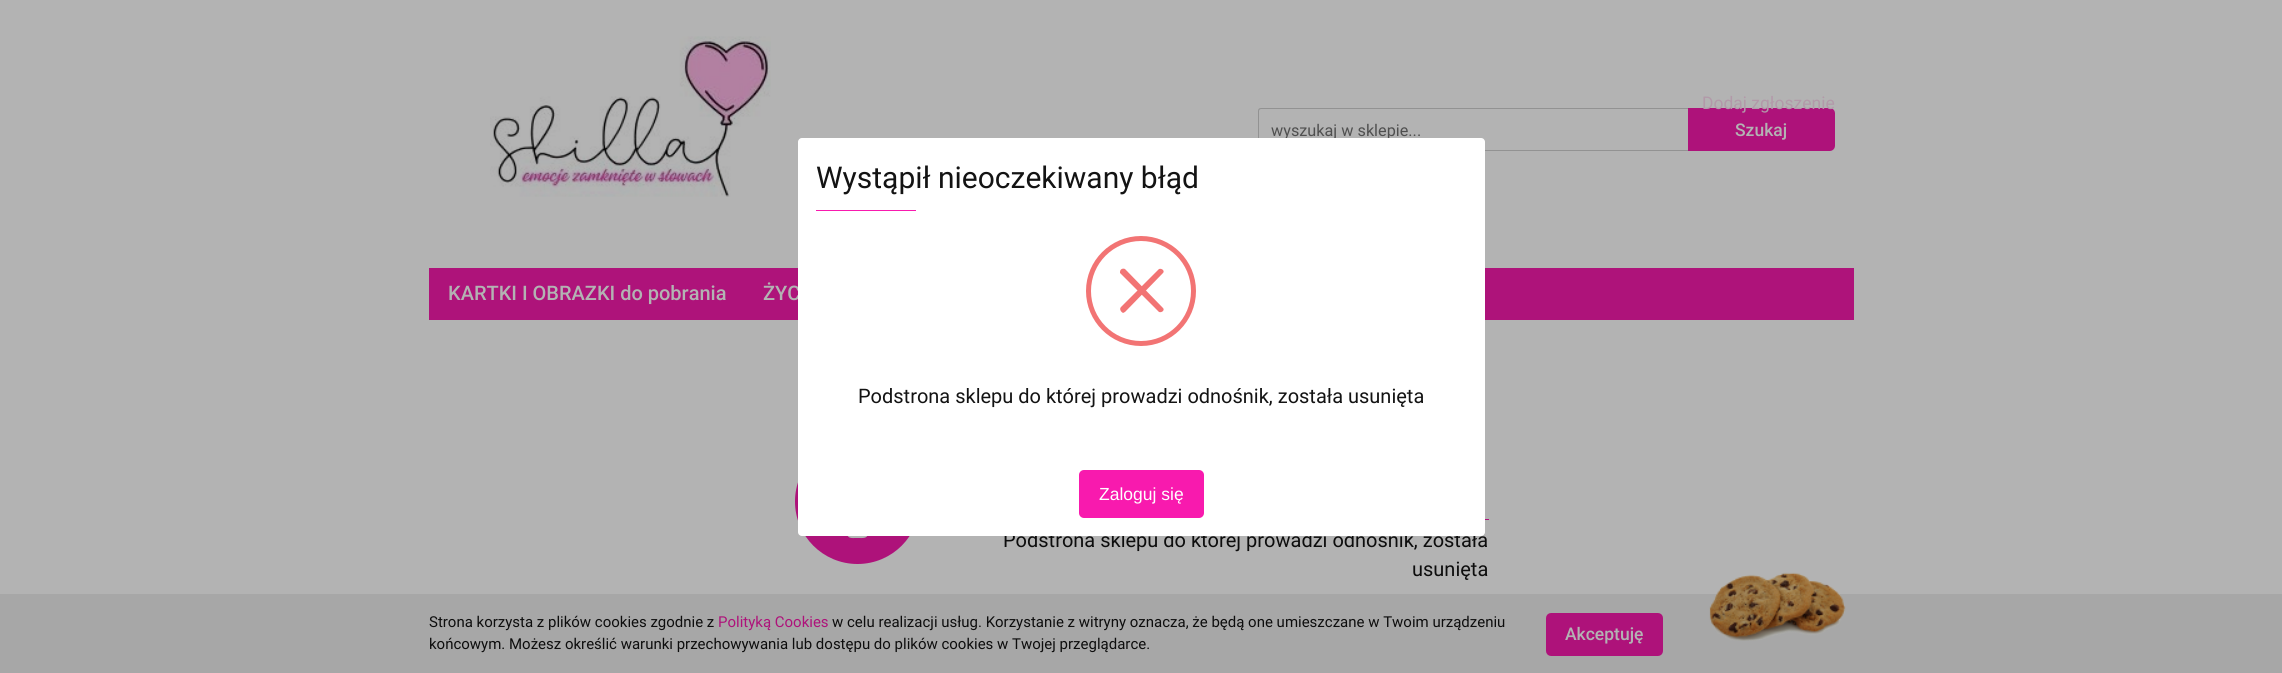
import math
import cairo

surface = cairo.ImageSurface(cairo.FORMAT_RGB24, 2282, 673)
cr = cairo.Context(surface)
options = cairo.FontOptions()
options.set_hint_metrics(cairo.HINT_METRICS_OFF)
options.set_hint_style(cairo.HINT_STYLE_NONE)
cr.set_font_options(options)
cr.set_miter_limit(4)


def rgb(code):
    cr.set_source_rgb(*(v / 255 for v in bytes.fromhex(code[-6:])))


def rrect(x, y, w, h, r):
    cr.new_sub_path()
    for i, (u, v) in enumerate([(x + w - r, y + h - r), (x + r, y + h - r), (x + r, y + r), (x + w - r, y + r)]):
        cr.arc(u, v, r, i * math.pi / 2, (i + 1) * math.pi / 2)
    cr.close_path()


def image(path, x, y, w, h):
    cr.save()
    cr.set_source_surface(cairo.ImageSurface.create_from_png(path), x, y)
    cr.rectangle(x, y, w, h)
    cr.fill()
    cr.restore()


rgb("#b3b3b3")
cr.paint()
image("img/1.png", 490, 36, 281, 161)
rgb("#929292")
cr.set_fill_rule(cairo.FILL_RULE_EVEN_ODD)
cr.new_path()
cr.move_to(1261, 108)
cr.line_to(1688, 108)
cr.line_to(1688, 151)
cr.line_to(1261, 151)
cr.curve_to(1259, 151, 1258, 150, 1258, 148)
cr.line_to(1258, 111)
cr.curve_to(1258, 109, 1259, 108, 1261, 108)
cr.close_path()
cr.move_to(1261, 109)
cr.line_to(1688, 109)
cr.line_to(1688, 150)
cr.line_to(1261, 150)
cr.curve_to(1260, 150, 1259, 149, 1259, 148)
cr.line_to(1259, 111)
cr.curve_to(1259, 110, 1260, 109, 1261, 109)
cr.close_path()
cr.fill()
rgb("#ae127a")
cr.new_path()
cr.move_to(1690, 110)
cr.line_to(1830, 110)
cr.curve_to(1831.5, 110, 1833, 111.5, 1833, 113)
cr.line_to(1833, 146)
cr.curve_to(1833, 147.5, 1831.5, 149, 1830, 149)
cr.line_to(1690, 149)
cr.close_path()
cr.fill_preserve()
cr.set_line_width(4)
cr.stroke()
rgb("#ae137a")
cr.rectangle(429, 268, 1425, 52)
cr.fill()
rgb("#ae127a")
cr.arc(857.5, 501.5, 62.5, 0, 2 * math.pi)
cr.fill()
rgb("#b3b3b3")
cr.set_fill_rule(cairo.FILL_RULE_WINDING)
cr.new_path()
cr.move_to(868, 521)
cr.line_to(868, 532)
cr.curve_to(868, 539, 864, 538, 857, 538)
cr.curve_to(851, 538, 847, 539, 847, 532)
cr.line_to(847, 521)
cr.curve_to(847, 516, 855, 518, 857, 518)
cr.curve_to(860, 518, 868, 516, 868, 521)
cr.close_path()
cr.move_to(870, 462)
cr.line_to(869, 491)
cr.curve_to(868, 508, 872, 509, 857, 509)
cr.curve_to(843, 509, 847, 508, 846, 491)
cr.line_to(845, 462)
cr.curve_to(845, 457, 855, 459, 857, 459)
cr.curve_to(860, 459, 870, 457, 870, 462)
cr.close_path()
cr.fill()
rgb("#ae127a")
cr.rectangle(1485, 519, 4, 1)
cr.fill()
rgb("#a7a7a7")
cr.rectangle(0, 594, 2282, 79)
cr.fill()
rgb("#ae127a")
rrect(1548, 615, 113, 39, 3)
cr.fill_preserve()
cr.stroke()
image("img/2.png", 1709, 572, 137, 69)
cr.select_font_face("Roboto")
cr.set_font_size(17.5)
rgb("#b299a9")
cr.move_to(1702, 109)
cr.show_text("Dodaj zgłoszenie")
cr.set_font_size(16.25)
rgb("#4f4f4f")
cr.move_to(1271, 136)
cr.show_text("wyszukaj w sklepie...")
cr.select_font_face("Roboto Medium")
cr.set_font_size(17.5)
rgb("#b3b3b3")
cr.move_to(1735, 136)
cr.show_text("Szukaj")
cr.set_font_size(20)
cr.move_to(448, 300)
cr.show_text("KARTKI I OBRAZKI do pobrania")
cr.move_to(763, 300)
cr.show_text("ŻYC")
cr.select_font_face("Roboto")
rgb("#0d0d0d")
cr.move_to(1003, 547)
cr.show_text("Podstrona sklepu do której prowadzi odnośnik, została")
cr.move_to(1412, 576)
cr.show_text("usunięta")
rgb("#ffffff")
rrect(798, 138, 687, 398, 4)
cr.fill()
cr.set_font_size(30)
rgb("#131313")
cr.move_to(816, 188)
cr.show_text("Wystąpił nieoczekiwany błąd")
rgb("#f81aae")
cr.rectangle(816, 210, 100, 1)
cr.fill()
cr.arc(1141, 291, 52.5, 0, 2 * math.pi)
rgb("#f27474")
cr.set_line_width(5)
cr.stroke()
cr.new_path()
cr.move_to(1125, 269)
cr.line_to(1163, 308)
cr.curve_to(1165, 310, 1162, 313, 1159, 312)
cr.line_to(1120, 273)
cr.line_to(1120, 272)
cr.curve_to(1120, 269, 1123, 268, 1125, 269)
cr.close_path()
cr.fill()
cr.new_path()
cr.move_to(1121, 307)
cr.line_to(1159, 269)
cr.curve_to(1162, 268, 1165, 271, 1163, 273)
cr.line_to(1125, 312)
cr.line_to(1123, 313)
cr.curve_to(1121, 312, 1119, 309, 1121, 307)
cr.close_path()
cr.fill()
cr.set_font_size(20)
rgb("#131313")
cr.move_to(858, 403)
cr.show_text("Podstrona sklepu do której prowadzi odnośnik, została usunięta")
rgb("#f81aae")
rrect(1079, 470, 125, 48, 5)
cr.fill()
cr.select_font_face("Liberation Sans")
cr.set_font_size(17.5)
rgb("#ffffff")
cr.move_to(1099, 500)
cr.show_text("Zaloguj się")
cr.select_font_face("Roboto")
cr.set_font_size(15)
rgb("#0d0d0d")
cr.move_to(429, 627)
cr.show_text("Strona korzysta z plików cookies zgodnie z")
rgb("#ae127a")
cr.move_to(718, 627)
cr.show_text("Polityką Cookies")
rgb("#0d0d0d")
cr.move_to(832, 627)
cr.show_text("w celu realizacji usług. Korzystanie z witryny oznacza, że będą one umieszczane w Twoim urządzeniu")
cr.move_to(429, 649)
cr.show_text("końcowym. Możesz określić warunki przechowywania lub dostępu do plików cookies w Twojej przeglądarce.")
cr.select_font_face("Roboto Medium")
cr.set_font_size(17.5)
rgb("#b3b3b3")
cr.move_to(1565, 640)
cr.show_text("Akceptuję")
surface.write_to_png("page.png")
